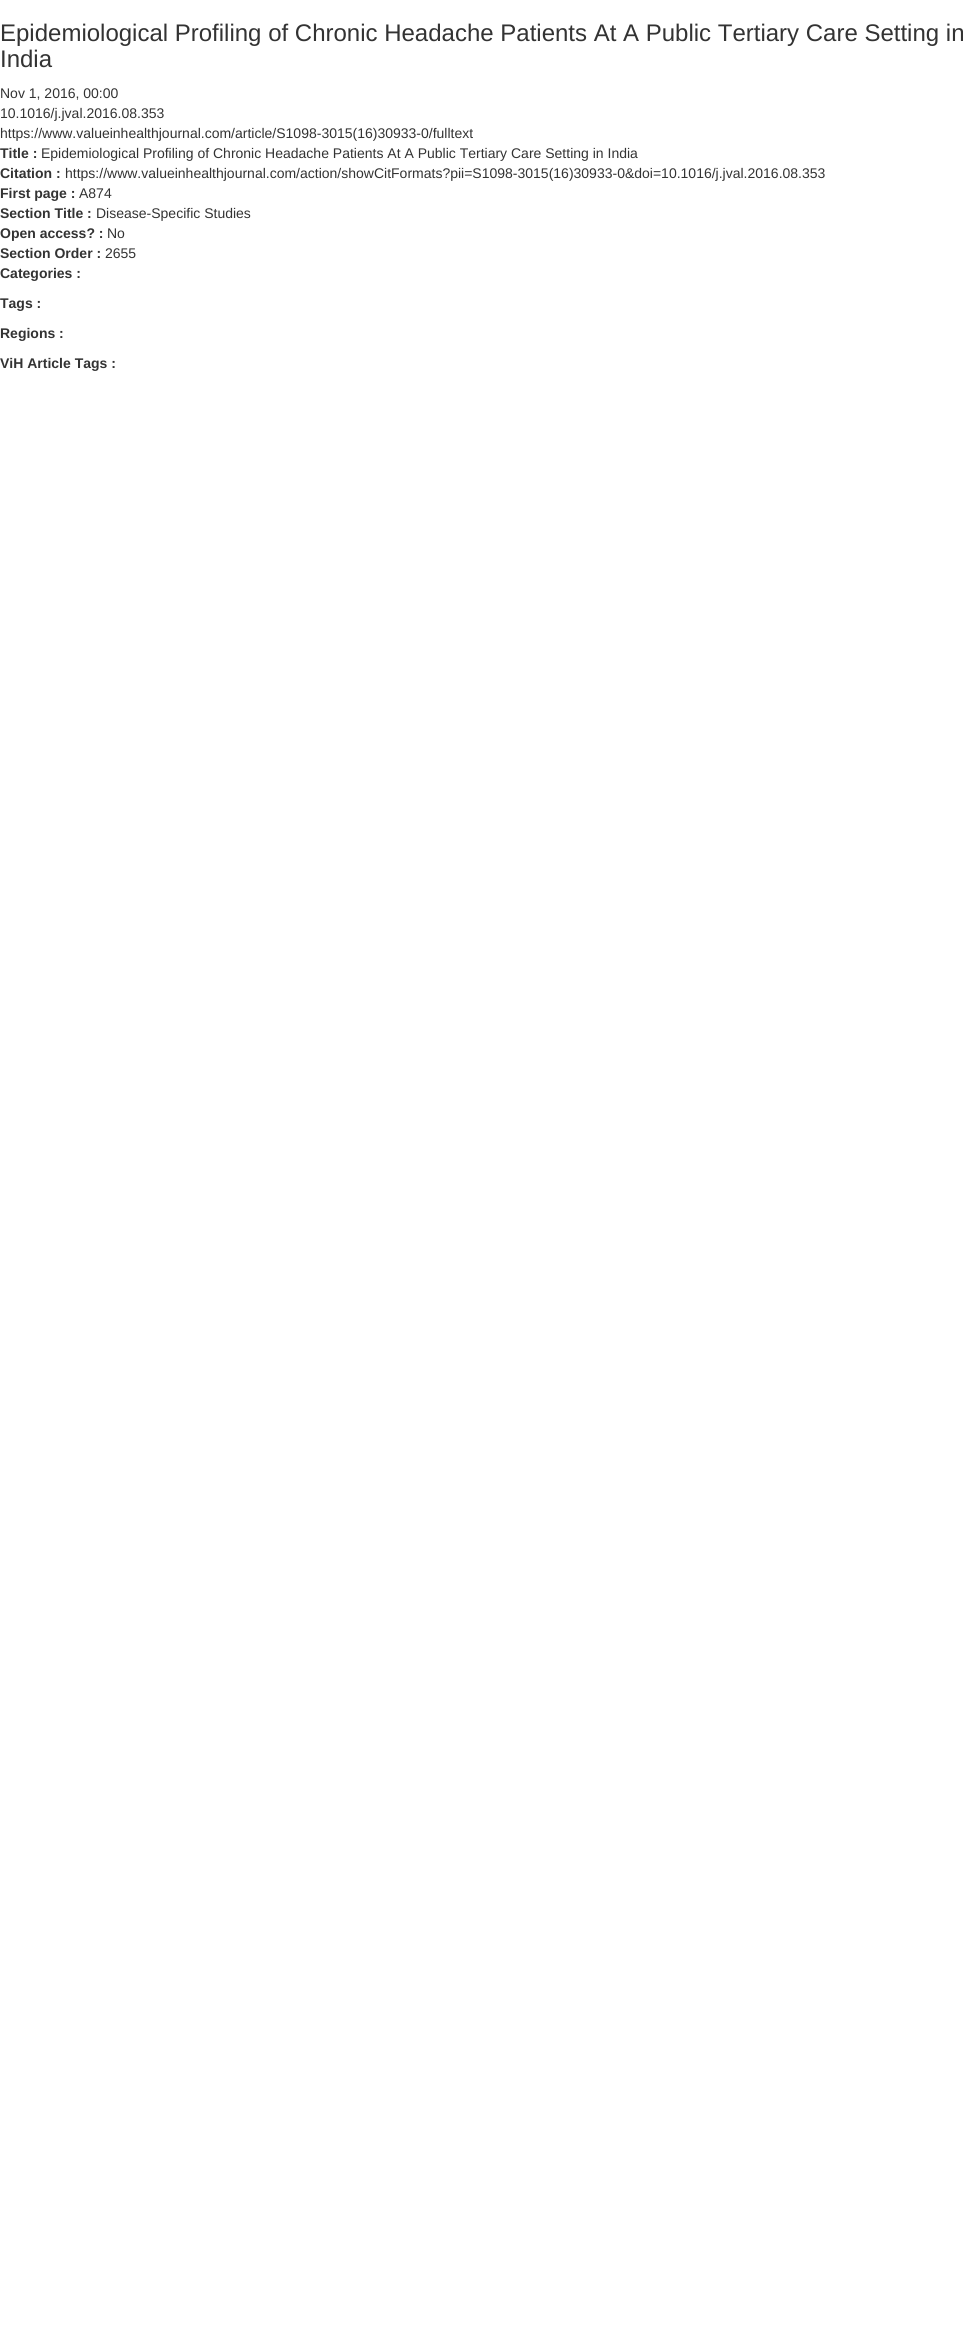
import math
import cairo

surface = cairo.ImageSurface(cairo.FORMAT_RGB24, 979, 2343)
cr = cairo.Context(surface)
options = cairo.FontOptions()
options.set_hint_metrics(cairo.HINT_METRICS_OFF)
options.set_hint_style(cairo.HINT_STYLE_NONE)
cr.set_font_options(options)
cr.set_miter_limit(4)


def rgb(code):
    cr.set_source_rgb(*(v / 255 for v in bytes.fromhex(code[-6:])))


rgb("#ffffff")
cr.paint()
cr.select_font_face("Liberation Sans")
cr.set_font_size(24)
rgb("#333333")
cr.move_to(0, 41)
cr.show_text("Epidemiological Profiling of Chronic Headache Patients At A Public Tertiary Care Setting in")
cr.move_to(0, 67)
cr.show_text("India")
cr.set_font_size(14)
for x, y, s in [
    (0, 98, "Nov 1, 2016, 00:00"),
    (0, 118, "10.1016/j.jval.2016.08.353"),
    (0, 138, "https://www.valueinhealthjournal.com/article/S1098-3015(16)30933-0/fulltext"),
]:
    cr.move_to(x, y)
    cr.show_text(s)
cr.select_font_face("Liberation Sans", cairo.FONT_SLANT_NORMAL, cairo.FONT_WEIGHT_BOLD)
cr.move_to(0, 158)
cr.show_text("Title :")
cr.select_font_face("Liberation Sans")
cr.move_to(41, 158)
cr.show_text("Epidemiological Profiling of Chronic Headache Patients At A Public Tertiary Care Setting in India")
cr.select_font_face("Liberation Sans", cairo.FONT_SLANT_NORMAL, cairo.FONT_WEIGHT_BOLD)
cr.move_to(0, 178)
cr.show_text("Citation :")
cr.select_font_face("Liberation Sans")
cr.move_to(65, 178)
cr.show_text("https://www.valueinhealthjournal.com/action/showCitFormats?pii=S1098-3015(16)30933-0&doi=10.1016/j.jval.2016.08.353")
cr.select_font_face("Liberation Sans", cairo.FONT_SLANT_NORMAL, cairo.FONT_WEIGHT_BOLD)
cr.move_to(0, 198)
cr.show_text("First page :")
cr.select_font_face("Liberation Sans")
cr.move_to(79, 198)
cr.show_text("A874")
cr.select_font_face("Liberation Sans", cairo.FONT_SLANT_NORMAL, cairo.FONT_WEIGHT_BOLD)
cr.move_to(0, 218)
cr.show_text("Section Title :")
cr.select_font_face("Liberation Sans")
cr.move_to(96, 218)
cr.show_text("Disease-Specific Studies")
cr.select_font_face("Liberation Sans", cairo.FONT_SLANT_NORMAL, cairo.FONT_WEIGHT_BOLD)
cr.move_to(0, 238)
cr.show_text("Open access? :")
cr.select_font_face("Liberation Sans")
cr.move_to(107, 238)
cr.show_text("No")
cr.select_font_face("Liberation Sans", cairo.FONT_SLANT_NORMAL, cairo.FONT_WEIGHT_BOLD)
cr.move_to(0, 258)
cr.show_text("Section Order :")
cr.select_font_face("Liberation Sans")
cr.move_to(105, 258)
cr.show_text("2655")
cr.select_font_face("Liberation Sans", cairo.FONT_SLANT_NORMAL, cairo.FONT_WEIGHT_BOLD)
for x, y, s in [
    (0, 278, "Categories :"),
    (0, 308, "Tags :"),
    (0, 338, "Regions :"),
    (0, 368, "ViH Article Tags :"),
]:
    cr.move_to(x, y)
    cr.show_text(s)
surface.write_to_png("page.png")
